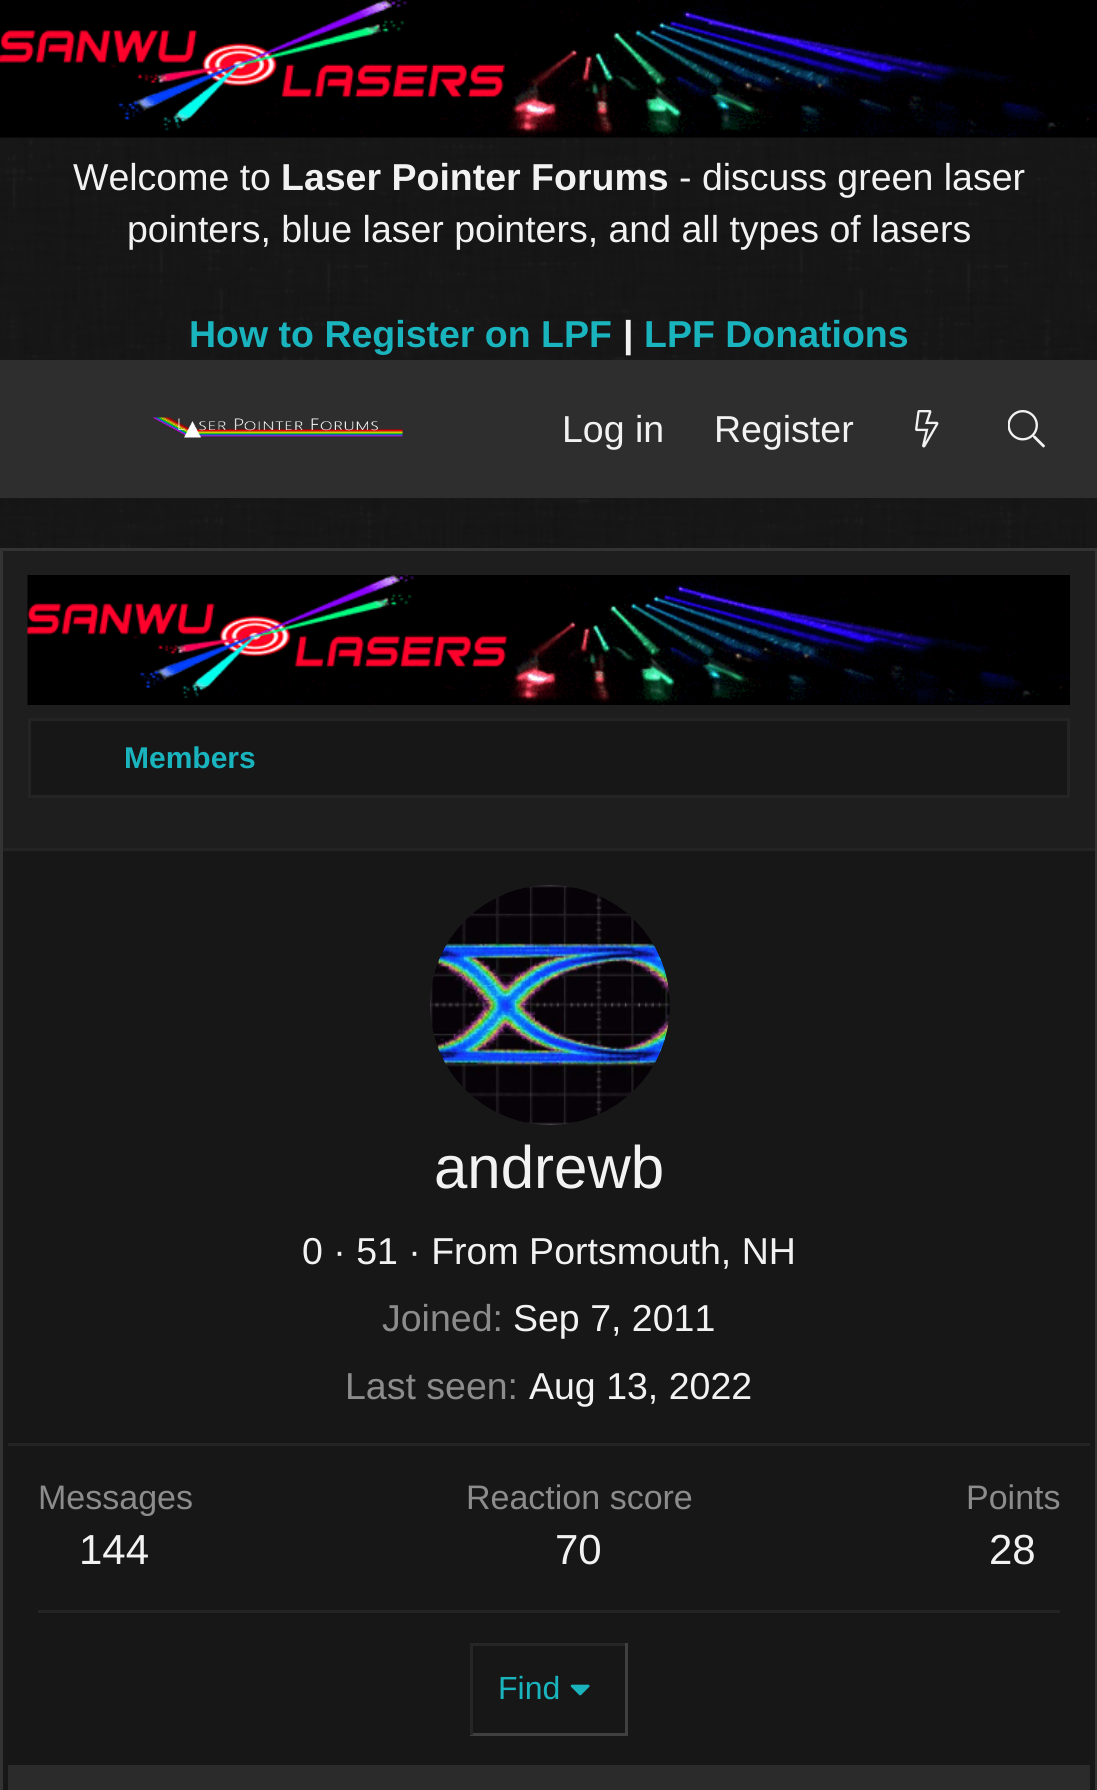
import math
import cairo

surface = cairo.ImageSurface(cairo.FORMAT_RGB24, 1097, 1790)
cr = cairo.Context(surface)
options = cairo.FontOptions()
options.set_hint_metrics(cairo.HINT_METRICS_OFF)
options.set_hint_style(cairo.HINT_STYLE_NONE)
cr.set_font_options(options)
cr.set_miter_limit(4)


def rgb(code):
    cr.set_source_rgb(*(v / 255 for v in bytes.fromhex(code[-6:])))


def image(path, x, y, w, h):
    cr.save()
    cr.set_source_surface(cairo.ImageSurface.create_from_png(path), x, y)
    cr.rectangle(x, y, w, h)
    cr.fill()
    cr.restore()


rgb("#ffffff")
cr.paint()
image("img/1.png", 0, 137, 1097, 411)
image("img/2.png", 0, 0, 1097, 138)
rgb("#2e2e2e")
cr.rectangle(0, 360, 1097, 138)
cr.fill()
image("img/3.png", 152, 417, 251, 21)
image("img/4.png", 915, 410, 24, 38)
image("img/5.png", 1008, 410, 37, 38)
rgb("#1e1e1e")
cr.rectangle(3, 551, 1092, 297)
cr.fill()
cr.rectangle(1.5, 549.5, 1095, 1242)
rgb("#333333")
cr.set_line_width(3)
cr.stroke()
image("img/6.png", 27, 575, 1043, 130)
rgb("#171717")
cr.rectangle(29.5, 719.5, 1039, 77)
cr.fill_preserve()
rgb("#242424")
cr.stroke()
for x, y, w, h, color in [
    (3, 851, 1092, 939, "#171717"),
    (3, 848, 1092, 3, "#242424"),
    (8, 1443, 1082, 3, "#242424"),
]:
    rgb(color)
    cr.rectangle(x, y, w, h)
    cr.fill()
image("img/7.png", 430, 885, 240, 240)
for x, y, w, h, color in [
    (38, 1610, 1022, 3, "#242424"),
    (470, 1643, 158, 3, "#262626"),
    (625, 1643, 3, 92, "#404040"),
    (470, 1733, 158, 3, "#404040"),
    (470, 1643, 3, 92, "#262626"),
]:
    rgb(color)
    cr.rectangle(x, y, w, h)
    cr.fill()
image("img/8.png", 570, 1684, 20, 12)
rgb("#2b2b2b")
cr.rectangle(8, 1765, 1082, 25)
cr.fill()
cr.select_font_face("Liberation Sans")
cr.set_font_size(37.5)
rgb("#f2f2f2")
cr.move_to(73, 190)
cr.show_text("Welcome to")
cr.select_font_face("Liberation Sans", cairo.FONT_SLANT_NORMAL, cairo.FONT_WEIGHT_BOLD)
cr.move_to(281, 190)
cr.show_text("Laser Pointer Forums")
cr.select_font_face("Liberation Sans")
cr.move_to(679, 190)
cr.show_text("- discuss green laser")
cr.move_to(127, 242)
cr.show_text("pointers, blue laser pointers, and all types of lasers")
cr.select_font_face("Liberation Sans", cairo.FONT_SLANT_NORMAL, cairo.FONT_WEIGHT_BOLD)
rgb("#19b4bd")
cr.move_to(189, 347)
cr.show_text("How to Register on LPF")
rgb("#f2f2f2")
cr.move_to(623, 347)
cr.show_text("|")
rgb("#19b4bd")
cr.move_to(644, 347)
cr.show_text("LPF Donations")
cr.select_font_face("Liberation Sans")
rgb("#f2f2f2")
cr.move_to(562, 442)
cr.show_text("Log in")
cr.move_to(714, 442)
cr.show_text("Register")
cr.select_font_face("Liberation Sans", cairo.FONT_SLANT_NORMAL, cairo.FONT_WEIGHT_BOLD)
cr.set_font_size(30)
rgb("#19b4bd")
cr.move_to(124, 768)
cr.show_text("Members")
cr.select_font_face("Liberation Sans")
cr.set_font_size(60)
rgb("#f2f2f2")
cr.move_to(434, 1188)
cr.show_text("andrewb")
cr.set_font_size(37.5)
cr.move_to(302, 1264)
cr.show_text("0 · 51 · From Portsmouth, NH")
rgb("#8c8c8c")
cr.move_to(382, 1331)
cr.show_text("Joined:")
rgb("#f2f2f2")
cr.move_to(513, 1331)
cr.show_text("Sep 7, 2011")
rgb("#8c8c8c")
cr.move_to(345, 1399)
cr.show_text("Last seen:")
rgb("#f2f2f2")
cr.move_to(529, 1399)
cr.show_text("Aug 13, 2022")
cr.set_font_size(34)
rgb("#8c8c8c")
cr.move_to(38, 1509)
cr.show_text("Messages")
cr.set_font_size(42)
rgb("#f2f2f2")
cr.move_to(79, 1564)
cr.show_text("144")
cr.set_font_size(34)
rgb("#8c8c8c")
cr.move_to(466, 1509)
cr.show_text("Reaction score")
cr.set_font_size(42)
rgb("#f2f2f2")
cr.move_to(555, 1564)
cr.show_text("70")
cr.set_font_size(34)
rgb("#8c8c8c")
cr.move_to(966, 1509)
cr.show_text("Points")
cr.set_font_size(42)
rgb("#f2f2f2")
cr.move_to(989, 1564)
cr.show_text("28")
cr.set_font_size(32)
rgb("#19b4bd")
cr.move_to(498, 1699)
cr.show_text("Find")
surface.write_to_png("page.png")
